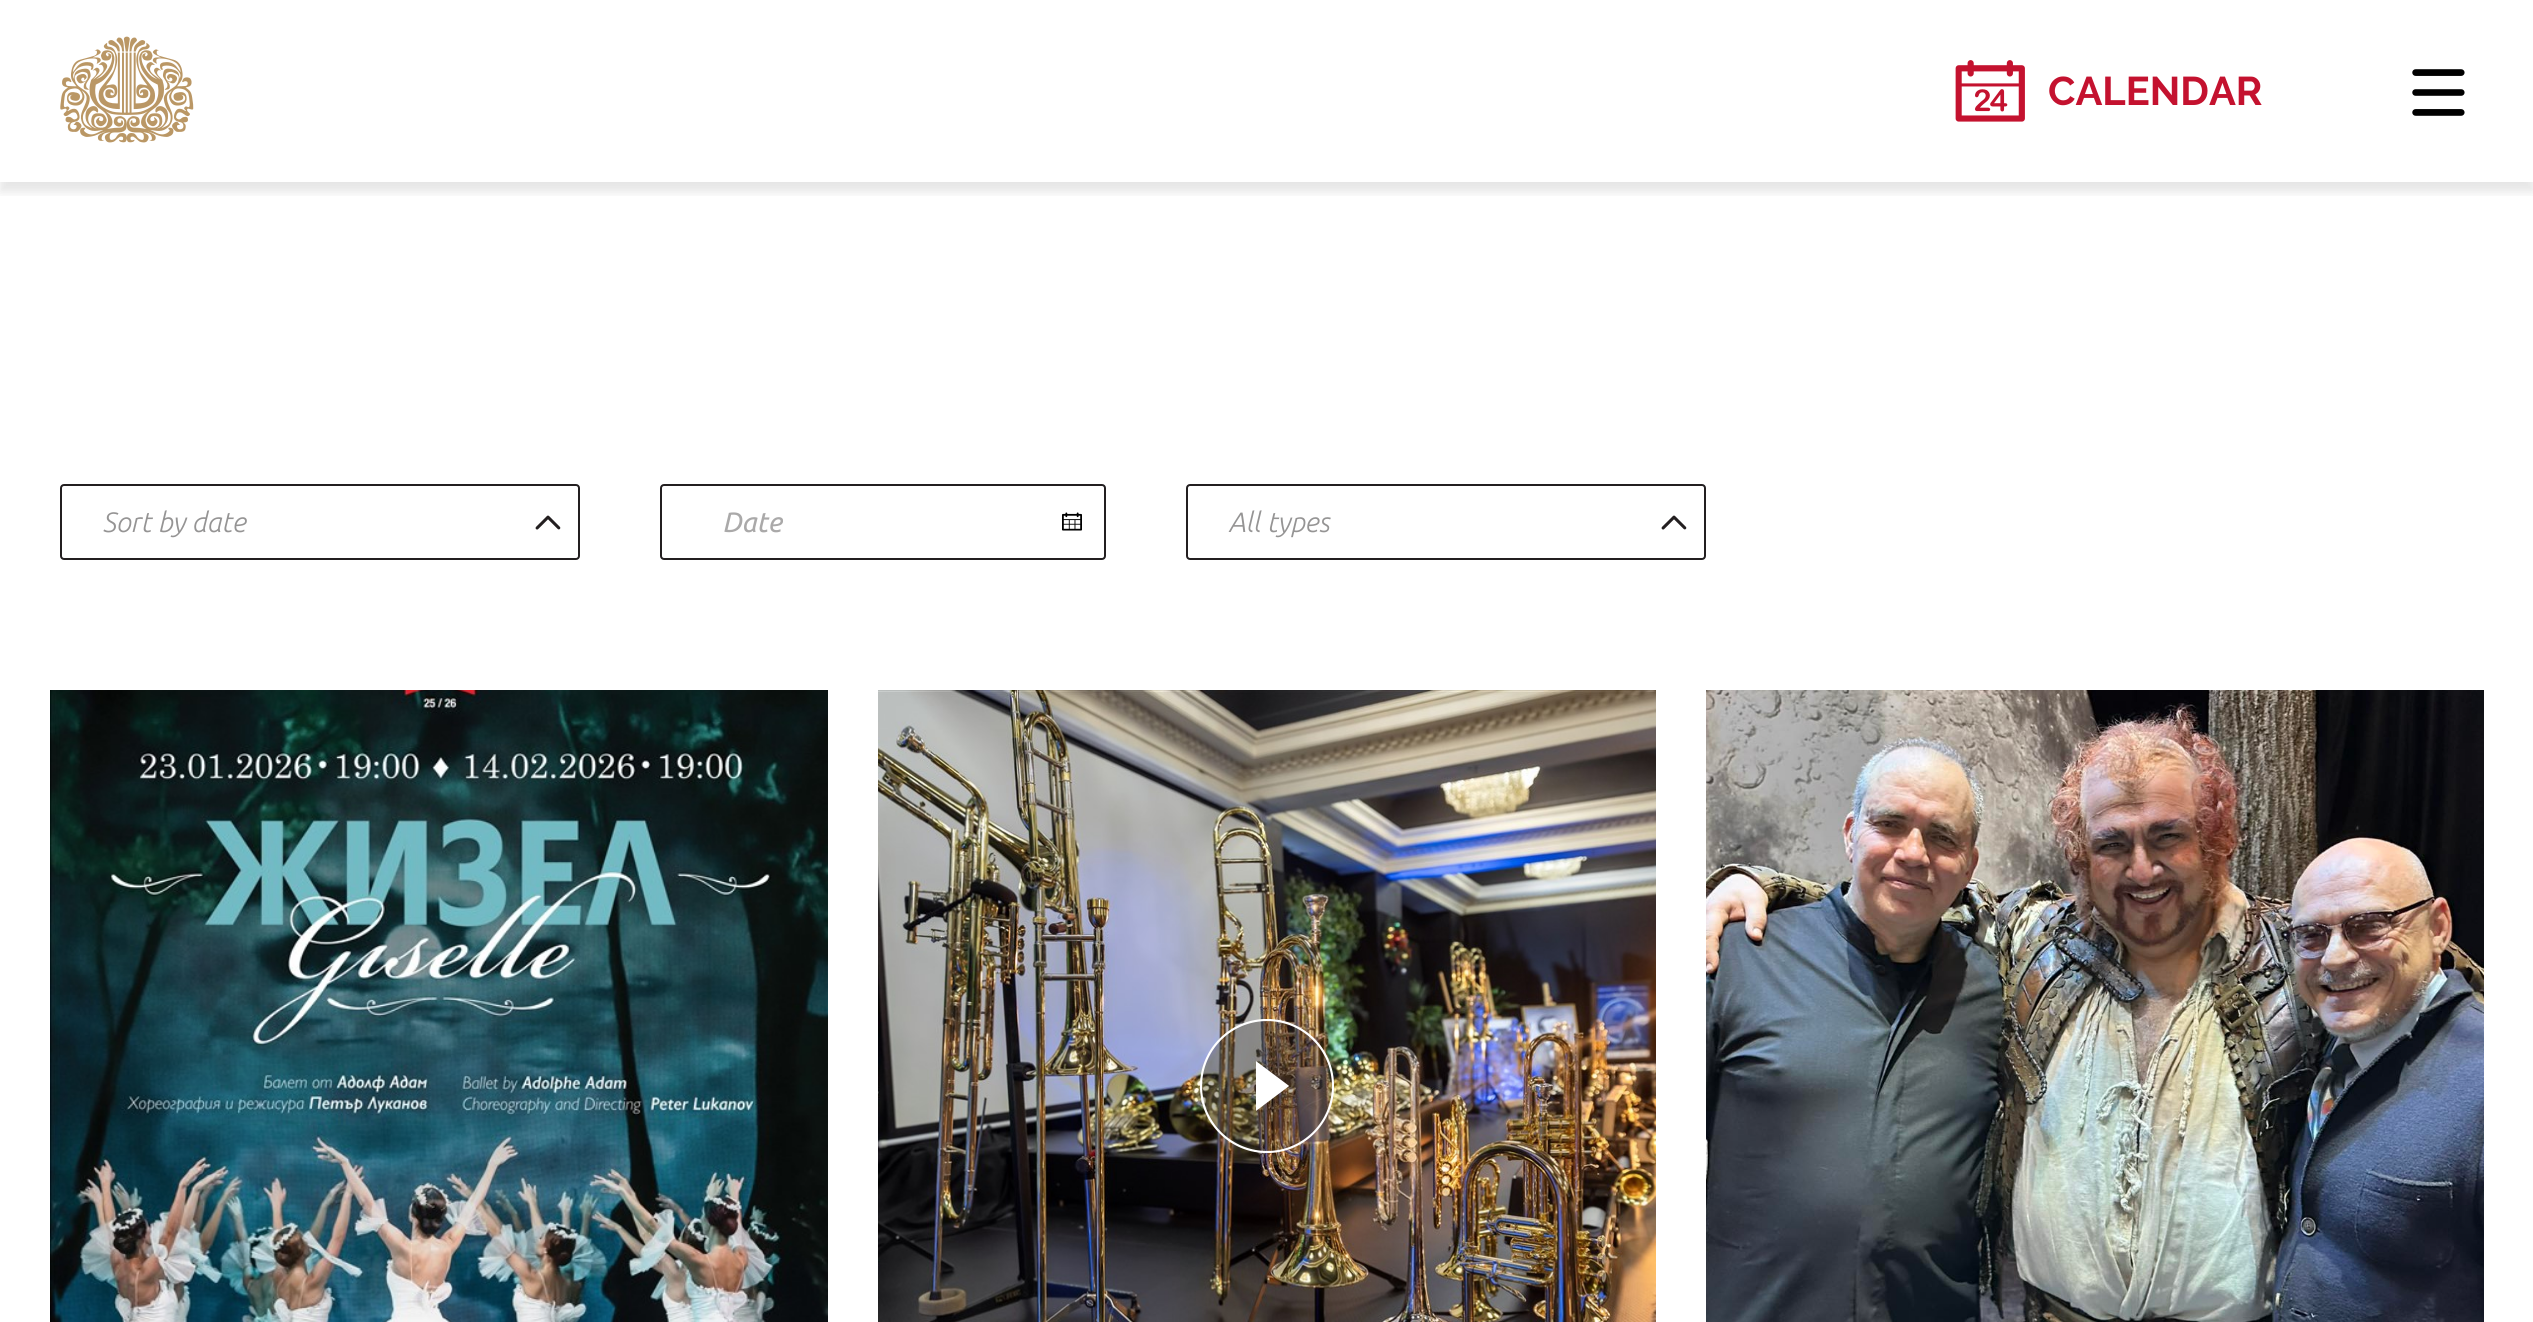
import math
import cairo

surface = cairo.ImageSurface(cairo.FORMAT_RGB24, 2533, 1322)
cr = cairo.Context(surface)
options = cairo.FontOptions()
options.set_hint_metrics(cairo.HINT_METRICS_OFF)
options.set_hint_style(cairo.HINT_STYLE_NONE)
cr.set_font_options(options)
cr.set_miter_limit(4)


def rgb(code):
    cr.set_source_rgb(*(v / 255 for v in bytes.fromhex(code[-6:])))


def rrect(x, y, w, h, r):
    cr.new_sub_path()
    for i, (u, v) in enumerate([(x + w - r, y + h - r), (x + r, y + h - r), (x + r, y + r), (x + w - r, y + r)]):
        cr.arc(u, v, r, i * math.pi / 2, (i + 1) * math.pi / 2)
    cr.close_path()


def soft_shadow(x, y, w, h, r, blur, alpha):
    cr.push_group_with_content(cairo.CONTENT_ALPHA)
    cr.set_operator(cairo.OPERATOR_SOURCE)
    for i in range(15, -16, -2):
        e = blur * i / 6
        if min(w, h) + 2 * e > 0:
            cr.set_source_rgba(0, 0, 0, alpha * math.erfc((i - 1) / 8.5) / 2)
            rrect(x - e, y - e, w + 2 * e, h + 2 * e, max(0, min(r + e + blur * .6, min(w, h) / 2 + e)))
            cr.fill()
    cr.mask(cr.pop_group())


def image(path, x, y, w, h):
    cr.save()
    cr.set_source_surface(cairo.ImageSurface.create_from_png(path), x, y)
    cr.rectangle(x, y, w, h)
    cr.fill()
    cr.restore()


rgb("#ffffff")
cr.paint()
cr.save()
cr.rectangle(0, 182, 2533, 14)
cr.clip()
rgb("#000000")
soft_shadow(0, 10, 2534, 182, 0, 5, 0.1)
cr.restore()
image("img/1.png", 60, 36, 134, 107)
image("img/2.png", 1955, 60, 70, 62)
image("img/3.png", 2412, 69, 53, 47)
rrect(61, 485, 518, 74, 3)
rgb("#231f20")
cr.stroke()
image("img/4.png", 535, 515, 26, 15)
image("img/5.png", 1062, 512, 20, 19)
rrect(661, 485, 444, 74, 3)
cr.stroke()
rrect(1187, 485, 518, 74, 3)
cr.stroke()
image("img/4.png", 1661, 515, 26, 15)
image("img/6.png", 50, 690, 778, 632)
image("img/7.png", 878, 690, 778, 632)
image("img/8.png", 1200, 1019, 134, 134)
image("img/9.png", 1706, 690, 778, 632)
cr.select_font_face("Raleway", cairo.FONT_SLANT_NORMAL, cairo.FONT_WEIGHT_BOLD)
cr.set_font_size(40)
rgb("#c4122f")
cr.move_to(2048, 105)
cr.show_text("CALENDAR")
cr.select_font_face("Ubuntu Light", cairo.FONT_SLANT_ITALIC)
cr.set_font_size(28)
rgb("#959494")
cr.move_to(102, 532)
cr.show_text("Sort by date")
cr.select_font_face("Ubuntu", cairo.FONT_SLANT_ITALIC)
rgb("#aaa9a9")
cr.move_to(722, 532)
cr.show_text("Date")
cr.select_font_face("Ubuntu Light", cairo.FONT_SLANT_ITALIC)
rgb("#959494")
cr.move_to(1228, 532)
cr.show_text("All types")
surface.write_to_png("page.png")
